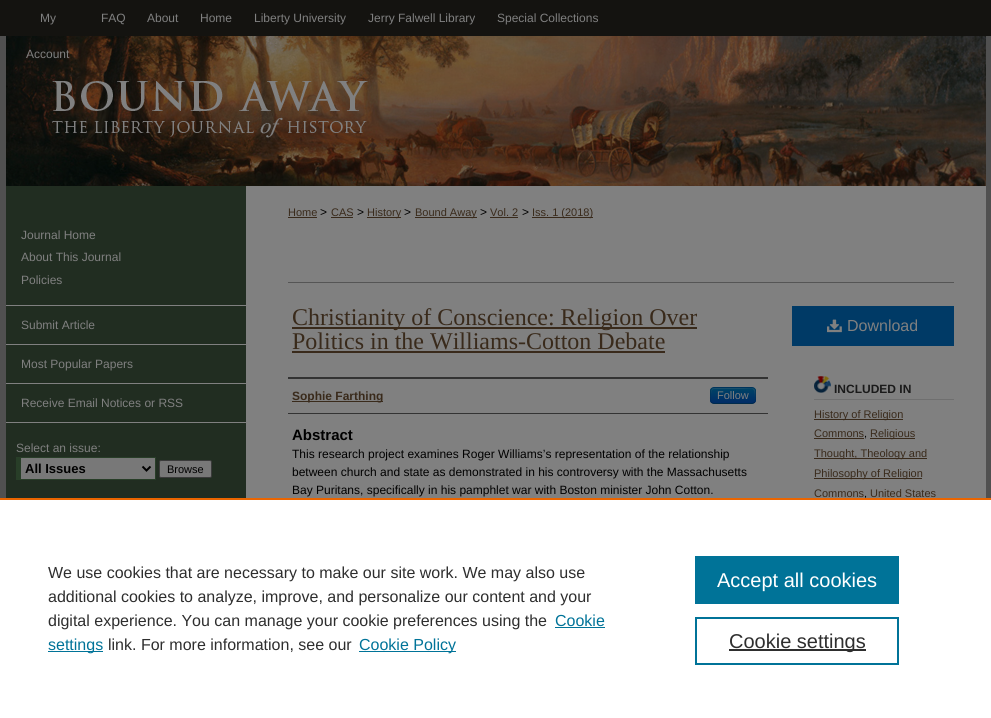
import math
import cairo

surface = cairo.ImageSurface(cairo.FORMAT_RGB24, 991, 718)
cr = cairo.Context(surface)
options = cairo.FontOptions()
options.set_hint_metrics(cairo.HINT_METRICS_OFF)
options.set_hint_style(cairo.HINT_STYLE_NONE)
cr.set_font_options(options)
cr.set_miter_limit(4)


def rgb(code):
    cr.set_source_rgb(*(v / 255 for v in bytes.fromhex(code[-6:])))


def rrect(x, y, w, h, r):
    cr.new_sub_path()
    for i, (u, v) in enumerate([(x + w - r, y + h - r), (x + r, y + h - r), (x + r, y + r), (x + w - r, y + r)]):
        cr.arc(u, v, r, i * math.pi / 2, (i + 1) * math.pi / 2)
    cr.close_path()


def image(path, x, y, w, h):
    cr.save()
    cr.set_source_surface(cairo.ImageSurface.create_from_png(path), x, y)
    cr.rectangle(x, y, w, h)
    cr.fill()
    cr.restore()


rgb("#505050")
cr.paint()
rgb("#141310")
cr.rectangle(0, 0, 991, 36)
cr.fill()
image("img/1.png", 6, 36, 980, 150)
for x, y, w, h, color in [
    (6, 186, 240, 312, "#212d21"),
    (246, 186, 740, 312, "#808080"),
    (6, 305, 240, 1, "#808080"),
    (6, 344, 240, 1, "#808080"),
    (6, 383, 240, 1, "#808080"),
    (6, 422, 240, 1, "#808080"),
    (21, 458, 134, 21, "#787878"),
    (16, 457, 140, 1, "#283e28"),
    (155, 457, 1, 23, "#283e28"),
    (16, 479, 140, 1, "#283e28"),
    (16, 457, 5, 23, "#283e28"),
]:
    rgb(color)
    cr.rectangle(x, y, w, h)
    cr.fill()
cr.new_path()
cr.move_to(142.5, 466.5)
cr.line_to(146.5, 470.5)
cr.line_to(150.5, 466.5)
rgb("#000000")
cr.stroke()
rgb("#787878")
rrect(159.5, 460.5, 52, 17, 1.5)
cr.fill_preserve()
rgb("#3b3b3b")
cr.set_line_width(1)
cr.stroke()
for x, y, w, h, color in [
    (288, 217, 29, 1, "#392a1b"),
    (331, 217, 22, 1, "#392a1b"),
    (367, 217, 34, 1, "#392a1b"),
    (415, 217, 62, 1, "#392a1b"),
    (490, 217, 28, 1, "#392a1b"),
    (532, 217, 61, 1, "#392a1b"),
    (288, 282, 666, 1, "#555555"),
    (292, 327, 405, 2, "#392a1b"),
    (292, 351, 373, 2, "#392a1b"),
    (288, 377, 480, 2, "#333333"),
    (288, 413, 480, 1, "#333333"),
    (292, 401, 91, 1, "#392a1b"),
]:
    rgb(color)
    cr.rectangle(x, y, w, h)
    cr.fill()
rgb("#003a66")
rrect(710, 387, 46, 17, 4)
cr.fill()
cr.save()
rrect(710, 387, 46, 17, 4)
cr.clip()
gradient = cairo.LinearGradient(733, 388, 733, 403)
gradient.add_color_stop_rgba(0, 0, 0.267, 0.4, 1)
gradient.add_color_stop_rgba(1, 0, 0.169, 0.4, 1)
cr.set_source(gradient)
cr.rectangle(710, 388, 46, 15)
cr.fill()
cr.restore()
cr.set_source_rgba(0.502, 0.502, 0.502, 0.2)
cr.new_path()
cr.move_to(714, 389)
cr.line_to(739, 389)
cr.curve_to(753, 389, 755, 385, 755, 400)
cr.curve_to(755, 389, 758, 388, 746, 388)
cr.line_to(720, 388)
cr.curve_to(713, 388, 711, 387, 711, 394)
cr.line_to(711, 401)
cr.curve_to(711, 398, 710, 389, 714, 389)
cr.close_path()
cr.fill()
cr.new_path()
cr.move_to(754.5, 402.5)
cr.curve_to(754, 403, 753, 403.5, 752, 403.5)
cr.line_to(714, 403.5)
cr.curve_to(713, 403.5, 712, 403, 711.5, 402.5)
cr.set_source_rgba(0, 0, 0, 0.25)
cr.stroke()
cr.new_path()
cr.move_to(711.5, 402.5)
cr.curve_to(710, 400.5, 710.5, 397.5, 710.5, 395.5)
cr.curve_to(710.5, 386.5, 711, 387.5, 720.5, 387.5)
cr.line_to(745.5, 387.5)
cr.curve_to(755, 387.5, 755.5, 386.5, 755.5, 395.5)
cr.curve_to(755.5, 397.5, 756, 400.5, 754.5, 402.5)
cr.set_source_rgba(0, 0, 0, 0.1)
cr.stroke()
rgb("#003a66")
cr.rectangle(792, 306, 162, 40)
cr.fill()
image("img/2.png", 827, 319, 15, 14)
image("img/3.png", 814, 376, 17, 17)
for x, y, w, h, color in [
    (814, 399, 140, 1, "#6f6f6f"),
    (814, 419, 89, 1, "#392a1b"),
    (814, 438, 50, 1, "#392a1b"),
    (870, 438, 45, 1, "#392a1b"),
    (814, 458, 113, 1, "#392a1b"),
    (814, 478, 108, 1, "#392a1b"),
    (0, 500, 991, 218, "#ffffff"),
    (555, 627, 50, 1, "#007398"),
    (48, 651, 55, 1, "#007398"),
    (359, 651, 97, 1, "#007398"),
    (695, 556, 204, 48, "#007398"),
]:
    rgb(color)
    cr.rectangle(x, y, w, h)
    cr.fill()
cr.rectangle(696, 618, 202, 46)
cr.set_line_width(2)
cr.stroke()
rgb("#2e2e2e")
cr.rectangle(729, 649, 137, 2)
cr.fill()
cr.select_font_face("Liberation Sans")
cr.set_font_size(12)
rgb("#808080")
for x, y, s in [
    (40, 22, "My"),
    (26, 58, "Account"),
    (101, 22, "FAQ"),
    (147, 22, "About"),
    (200, 22, "Home"),
    (254, 22, "Liberty University"),
    (368, 22, "Jerry Falwell Library"),
    (497, 22, "Special Collections"),
    (21, 239, "Journal Home"),
    (21, 261, "About This Journal"),
    (21, 284, "Policies"),
    (21, 329, "Submit Article"),
    (21, 368, "Most Popular Papers"),
    (21, 407, "Receive Email Notices or RSS"),
    (16, 452, "Select an issue:"),
]:
    cr.move_to(x, y)
    cr.show_text(s)
cr.select_font_face("Liberation Sans", cairo.FONT_SLANT_NORMAL, cairo.FONT_WEIGHT_BOLD)
cr.set_font_size(13)
rgb("#000000")
cr.move_to(25, 473)
cr.show_text("All Issues")
cr.select_font_face("Liberation Sans")
cr.set_font_size(11)
cr.move_to(167, 473)
cr.show_text("Browse")
rgb("#392a1b")
cr.move_to(288, 216)
cr.show_text("Home")
cr.set_font_size(12)
rgb("#000000")
cr.move_to(320, 216)
cr.show_text(">")
cr.set_font_size(11)
rgb("#392a1b")
cr.move_to(331, 216)
cr.show_text("CAS")
cr.set_font_size(12)
rgb("#000000")
cr.move_to(357, 216)
cr.show_text(">")
cr.set_font_size(11)
rgb("#392a1b")
cr.move_to(367, 216)
cr.show_text("History")
cr.set_font_size(12)
rgb("#000000")
cr.move_to(404, 216)
cr.show_text(">")
cr.set_font_size(11)
rgb("#392a1b")
cr.move_to(415, 216)
cr.show_text("Bound Away")
cr.set_font_size(12)
rgb("#000000")
cr.move_to(480, 216)
cr.show_text(">")
cr.set_font_size(11)
rgb("#392a1b")
cr.move_to(490, 216)
cr.show_text("Vol. 2")
cr.set_font_size(12)
rgb("#000000")
cr.move_to(522, 216)
cr.show_text(">")
cr.set_font_size(11)
rgb("#392a1b")
cr.move_to(532, 216)
cr.show_text("Iss. 1 (2018)")
cr.select_font_face("Liberation Serif")
cr.set_font_size(24)
cr.move_to(292, 325)
cr.show_text("Christianity of Conscience: Religion Over")
cr.move_to(292, 349)
cr.show_text("Politics in the Williams-Cotton Debate")
cr.select_font_face("Liberation Sans", cairo.FONT_SLANT_NORMAL, cairo.FONT_WEIGHT_BOLD)
cr.set_font_size(12)
cr.move_to(292, 400)
cr.show_text("Sophie Farthing")
cr.select_font_face("Liberation Sans")
cr.set_font_size(11)
rgb("#808080")
cr.move_to(717, 399)
cr.show_text("Follow")
cr.select_font_face("Liberation Sans", cairo.FONT_SLANT_NORMAL, cairo.FONT_WEIGHT_BOLD)
cr.set_font_size(15)
rgb("#000000")
cr.move_to(292, 440)
cr.show_text("Abstract")
cr.select_font_face("Liberation Sans")
cr.set_font_size(12)
for x, y, s in [
    (292, 458, "This research project examines Roger Williams’s representation of the relationship"),
    (292, 476, "between church and state as demonstrated in his controversy with the Massachusetts"),
    (292, 494, "Bay Puritans, specifically in his pamphlet war with Boston minister John Cotton."),
]:
    cr.move_to(x, y)
    cr.show_text(s)
cr.set_font_size(16)
rgb("#808080")
cr.move_to(847, 331)
cr.show_text("Download")
cr.select_font_face("Liberation Sans", cairo.FONT_SLANT_NORMAL, cairo.FONT_WEIGHT_BOLD)
cr.set_font_size(12)
rgb("#1a1a1a")
cr.move_to(834, 393)
cr.show_text("INCLUDED IN")
cr.select_font_face("Liberation Sans")
cr.set_font_size(11)
rgb("#392a1b")
cr.move_to(814, 418)
cr.show_text("History of Religion")
cr.move_to(814, 437)
cr.show_text("Commons")
rgb("#000000")
cr.move_to(864, 437)
cr.show_text(",")
rgb("#392a1b")
for x, y, s in [
    (870, 437, "Religious"),
    (814, 457, "Thought, Theology and"),
    (814, 477, "Philosophy of Religion"),
    (814, 497, "Commons"),
]:
    cr.move_to(x, y)
    cr.show_text(s)
rgb("#000000")
cr.move_to(864, 497)
cr.show_text(",")
rgb("#392a1b")
cr.move_to(870, 497)
cr.show_text("United States")
rgb("#eb6500")
cr.rectangle(0, 498, 991, 2)
cr.fill()
cr.set_font_size(16)
rgb("#2e2e2e")
for x, y, s in [
    (48, 578, "We use cookies that are necessary to make our site work. We may also use"),
    (48, 602, "additional cookies to analyze, improve, and personalize our content and your"),
    (48, 626, "digital experience. You can manage your cookie preferences using the"),
]:
    cr.move_to(x, y)
    cr.show_text(s)
rgb("#007398")
cr.move_to(555, 626)
cr.show_text("Cookie")
cr.move_to(48, 650)
cr.show_text("settings")
rgb("#2e2e2e")
cr.move_to(108, 650)
cr.show_text("link. For more information, see our")
rgb("#007398")
cr.move_to(359, 650)
cr.show_text("Cookie Policy")
cr.set_font_size(20)
rgb("#ffffff")
cr.move_to(717, 587)
cr.show_text("Accept all cookies")
rgb("#2e2e2e")
cr.move_to(729, 648)
cr.show_text("Cookie settings")
surface.write_to_png("page.png")
